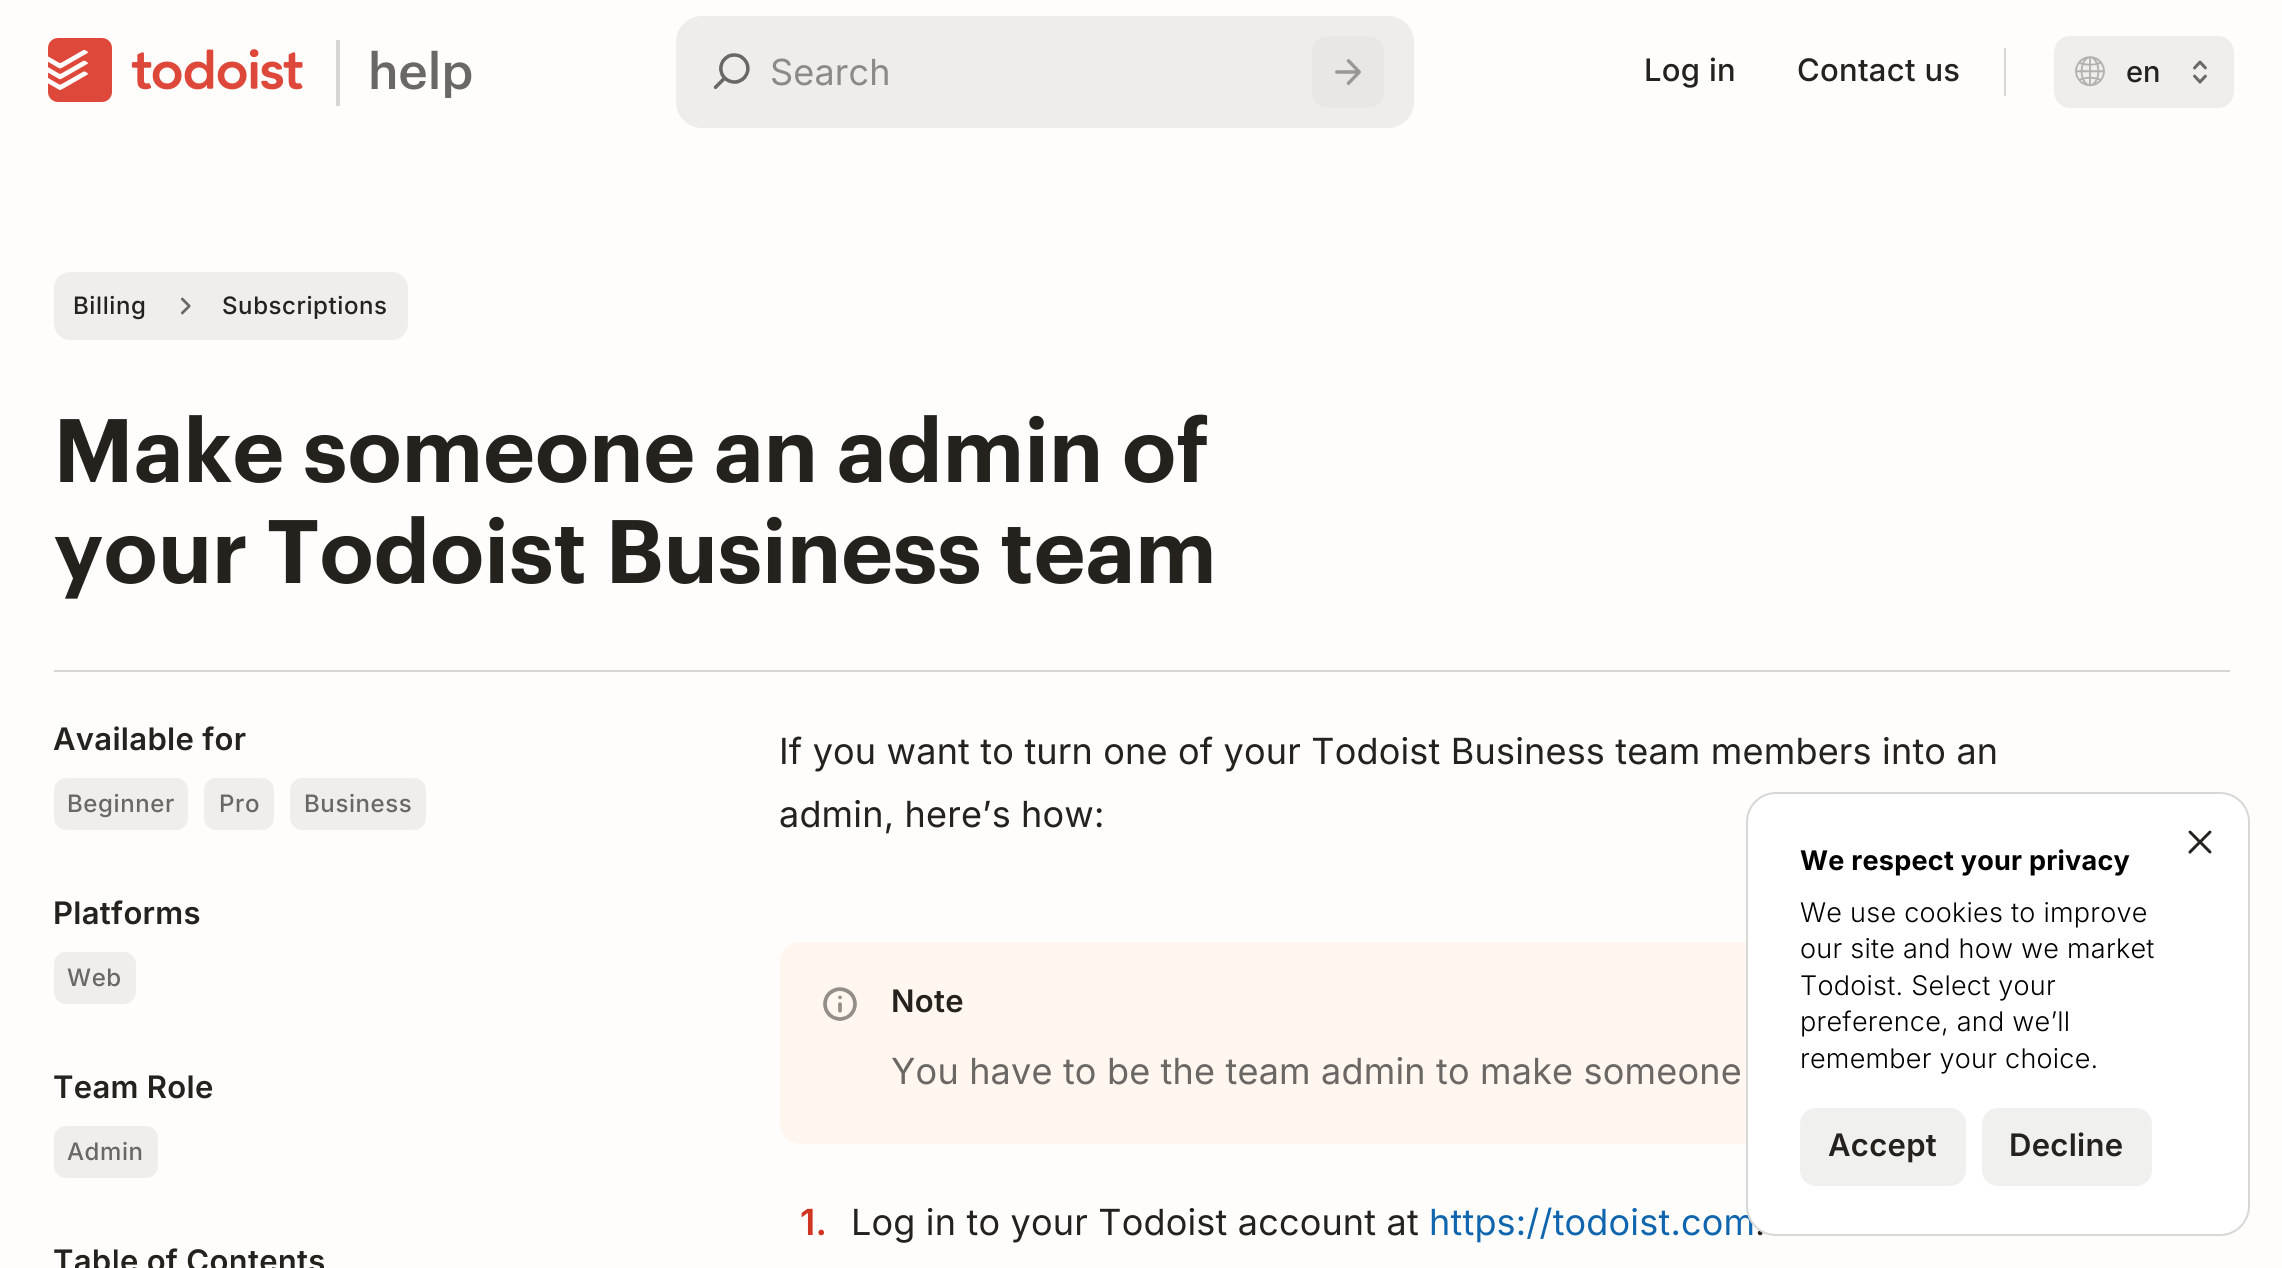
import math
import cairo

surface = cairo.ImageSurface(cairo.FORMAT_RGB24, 2282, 1268)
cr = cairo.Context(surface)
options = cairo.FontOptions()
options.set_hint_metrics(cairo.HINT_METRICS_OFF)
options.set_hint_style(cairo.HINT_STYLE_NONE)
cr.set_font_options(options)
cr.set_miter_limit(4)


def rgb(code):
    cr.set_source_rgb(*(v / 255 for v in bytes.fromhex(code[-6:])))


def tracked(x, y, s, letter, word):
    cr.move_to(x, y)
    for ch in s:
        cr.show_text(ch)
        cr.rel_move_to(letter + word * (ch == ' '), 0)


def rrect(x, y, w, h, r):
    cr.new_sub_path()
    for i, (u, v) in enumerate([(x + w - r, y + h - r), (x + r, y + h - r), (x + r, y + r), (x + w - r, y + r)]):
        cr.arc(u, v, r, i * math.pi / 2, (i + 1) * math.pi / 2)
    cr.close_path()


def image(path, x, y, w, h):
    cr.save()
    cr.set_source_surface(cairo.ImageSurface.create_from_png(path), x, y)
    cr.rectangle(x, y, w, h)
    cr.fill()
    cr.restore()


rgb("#fefdfc")
cr.paint()
image("img/1.png", 48, 38, 255, 64)
rgb("#d7d6d4")
cr.rectangle(336, 40, 4, 66)
cr.fill()
rgb("#efedec")
rrect(676, 16, 738, 112, 26)
cr.fill()
image("img/2.png", 713, 53, 37, 36)
rgb("#e9e7e6")
rrect(1312, 36, 72, 72, 16)
cr.fill()
image("img/3.png", 1335, 59, 26, 26)
rgb("#d7d6d4")
cr.rectangle(2004, 48, 2, 48)
cr.fill()
rgb("#efeeec")
rrect(2054, 36, 180, 72, 16)
cr.fill()
image("img/4.png", 2075, 56, 30, 31)
image("img/5.png", 2193, 60, 14, 24)
rrect(54, 272, 354, 68, 16)
cr.fill()
image("img/6.png", 180, 297, 11, 18)
rgb("#d7d6d4")
cr.rectangle(54, 670, 2176, 2)
cr.fill()
rgb("#efeeec")
rrect(54, 778, 134, 52, 12)
cr.fill()
rrect(204, 778, 70, 52, 12)
cr.fill()
rrect(290, 778, 136, 52, 12)
cr.fill()
rrect(54, 952, 82, 52, 12)
cr.fill()
rrect(54, 1126, 104, 52, 12)
cr.fill()
rgb("#fff6f0")
rrect(780, 942, 1300, 202, 20)
cr.fill()
image("img/7.png", 823, 987, 34, 34)
cr.select_font_face("Graphik Medium")
cr.set_font_size(50)
rgb("#6a6764")
cr.move_to(368, 89)
cr.show_text("help")
cr.select_font_face("Inter")
cr.set_font_size(36)
rgb("#8c8a87")
tracked(770, 85, "Search", 0.18, 0)
cr.select_font_face("Inter Medium")
cr.set_font_size(31)
rgb("#25221e")
tracked(1644, 81, "Log in", 0.3, 0)
tracked(1797, 81, "Contact us", 0.3, 0)
cr.set_font_size(29)
cr.move_to(2126, 82)
cr.show_text("en")
cr.set_font_size(24)
tracked(73, 314, "Billing", 0.6, 0)
tracked(222, 314, "Subscriptions", 0.6, 0)
cr.select_font_face("Graphik SemiBold")
cr.set_font_size(88)
tracked(53, 482, "Make someone an admin of", -0.9, 0)
tracked(53, 583, "your Todoist Business team", -0.9, 0)
cr.select_font_face("Inter SemiBold")
cr.set_font_size(31)
tracked(53, 750, "Available for", 0.3, 0)
cr.select_font_face("Inter Medium")
cr.set_font_size(24)
rgb("#6a6764")
for x, y, s in [
    (67, 812, "Beginner"),
    (219, 812, "Pro"),
    (304, 812, "Business"),
]:
    tracked(x, y, s, 0.6, 0)
cr.select_font_face("Inter SemiBold")
cr.set_font_size(31)
rgb("#25221e")
tracked(53, 924, "Platforms", 0.3, 0)
cr.select_font_face("Inter Medium")
cr.set_font_size(24)
rgb("#6a6764")
tracked(67, 986, "Web", 0.6, 0)
cr.select_font_face("Inter SemiBold")
cr.set_font_size(31)
rgb("#25221e")
tracked(53, 1098, "Team Role", 0.3, 0)
cr.select_font_face("Inter Medium")
cr.set_font_size(24)
rgb("#6a6764")
tracked(67, 1160, "Admin", 0.6, 0)
cr.select_font_face("Inter SemiBold")
cr.set_font_size(31)
rgb("#25221e")
tracked(53, 1272, "Table of Contents", 0.3, 0)
cr.select_font_face("Inter")
cr.set_font_size(36)
tracked(779, 764, "If you want to turn one of your Todoist Business team members into an", 0.18, 0)
tracked(779, 827, "admin, here’s how:", 0.18, 0)
cr.select_font_face("Inter SemiBold")
cr.set_font_size(31)
tracked(891, 1012, "Note", 0.3, 0)
cr.select_font_face("Inter")
cr.set_font_size(36)
rgb("#6a6764")
tracked(891, 1084, "You have to be the team admin to make someone", 0.18, 0)
cr.select_font_face("Inter SemiBold")
rgb("#cf3520")
tracked(800, 1235, "1.", 0.18, 0)
cr.select_font_face("Inter")
rgb("#25221e")
tracked(851, 1235, "Log in to your Todoist account at", 0.18, 0)
rgb("#0f66ae")
tracked(1429, 1235, "https://todoist.com", 0.18, 0)
rgb("#25221e")
tracked(1755, 1235, ".", 0.18, 0)
rgb("#ffffff")
rrect(1746, 792, 504, 444, 30)
cr.fill()
rrect(1747, 793, 502, 442, 29)
cr.set_source_rgba(0.145, 0.133, 0.118, 0.18)
cr.stroke()
image("img/8.png", 2188, 830, 24, 24)
cr.select_font_face("Inter", cairo.FONT_SLANT_NORMAL, cairo.FONT_WEIGHT_BOLD)
cr.set_font_size(27)
rgb("#000000")
tracked(1800, 870, "We respect your privacy", 0.25, 0)
cr.select_font_face("Inter Light")
for x, y, s in [
    (1800, 922, "We use cookies to improve"),
    (1800, 958, "our site and how we market"),
    (1800, 995, "Todoist. Select your"),
    (1800, 1031, "preference, and we’ll"),
    (1800, 1068, "remember your choice."),
]:
    tracked(x, y, s, 0.25, 0)
rgb("#f0f0ef")
rrect(1800, 1108, 166, 78, 16)
cr.fill()
cr.select_font_face("Inter SemiBold")
cr.set_font_size(31)
rgb("#25221e")
tracked(1828, 1156, "Accept", 0.3, 0)
rgb("#f0f0ef")
rrect(1982, 1108, 170, 78, 16)
cr.fill()
rgb("#25221e")
tracked(2009, 1156, "Decline", 0.3, 0)
surface.write_to_png("page.png")
